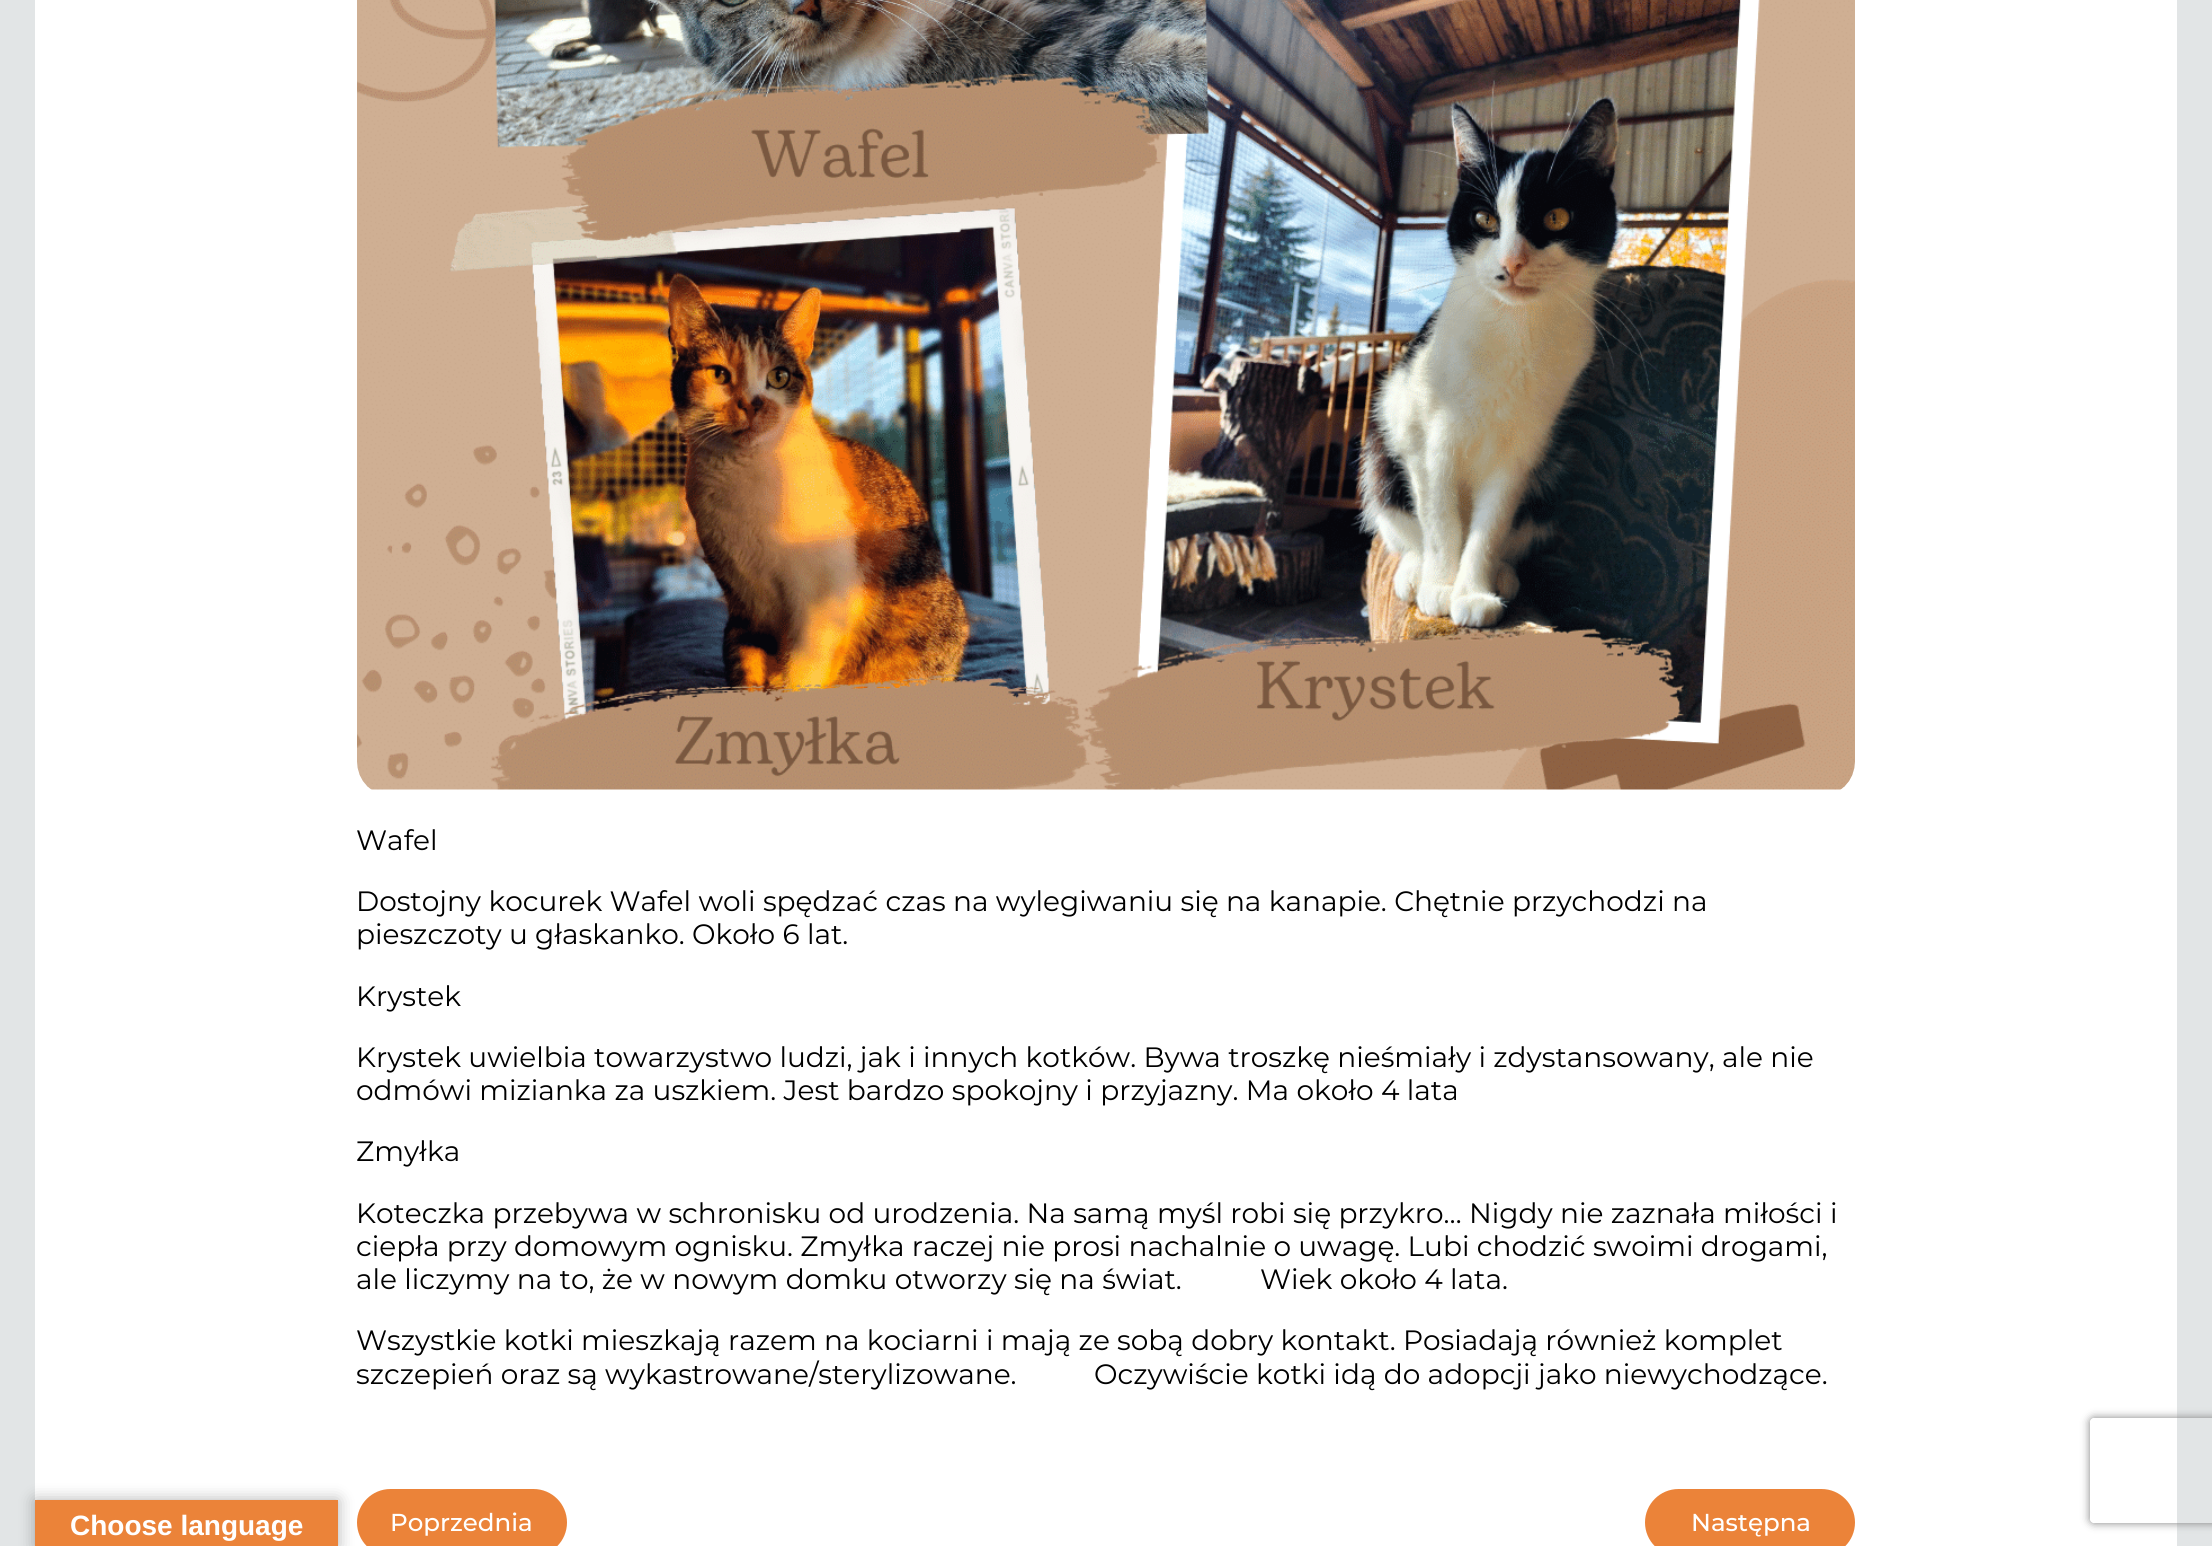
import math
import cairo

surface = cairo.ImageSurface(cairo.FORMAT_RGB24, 2212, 1546)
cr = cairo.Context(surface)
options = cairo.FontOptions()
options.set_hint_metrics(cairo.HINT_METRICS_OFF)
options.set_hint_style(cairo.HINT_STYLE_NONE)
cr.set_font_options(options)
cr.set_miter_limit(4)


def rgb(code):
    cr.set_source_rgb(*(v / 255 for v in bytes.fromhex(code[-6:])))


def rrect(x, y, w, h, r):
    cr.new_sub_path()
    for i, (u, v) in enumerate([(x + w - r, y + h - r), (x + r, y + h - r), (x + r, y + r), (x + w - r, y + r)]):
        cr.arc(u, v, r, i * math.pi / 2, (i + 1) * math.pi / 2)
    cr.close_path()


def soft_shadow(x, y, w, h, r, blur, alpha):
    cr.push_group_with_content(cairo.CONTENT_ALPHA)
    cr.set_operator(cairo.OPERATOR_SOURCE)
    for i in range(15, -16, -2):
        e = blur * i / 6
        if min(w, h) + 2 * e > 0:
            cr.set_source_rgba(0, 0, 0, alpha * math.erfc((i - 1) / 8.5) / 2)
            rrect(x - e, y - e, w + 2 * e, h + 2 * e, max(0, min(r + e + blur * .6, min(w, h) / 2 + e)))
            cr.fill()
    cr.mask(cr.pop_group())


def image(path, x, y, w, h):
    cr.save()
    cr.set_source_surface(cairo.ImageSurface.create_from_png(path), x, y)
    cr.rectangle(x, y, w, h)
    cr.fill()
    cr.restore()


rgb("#e2e5e6")
cr.paint()
rgb("#ffffff")
cr.rectangle(35, 0, 2142, 1546)
cr.fill()
rgb("#eb8339")
rrect(357, 1489, 210, 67, 33.5)
cr.fill()
rgb("#000000")
soft_shadow(35, 1500, 303, 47, 0, 8, 0.3)
rgb("#eb8339")
cr.rectangle(35, 1500, 303, 46)
cr.fill()
image("img/1.png", 357, 0, 1498, 790)
rrect(1645, 1489, 210, 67, 33.5)
cr.fill()
cr.save()
cr.set_fill_rule(cairo.FILL_RULE_EVEN_ODD)
cr.new_path()
cr.move_to(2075, 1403)
cr.line_to(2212, 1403)
cr.line_to(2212, 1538)
cr.line_to(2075, 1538)
cr.close_path()
cr.move_to(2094, 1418)
cr.line_to(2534, 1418)
cr.curve_to(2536, 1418, 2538, 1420, 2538, 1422)
cr.line_to(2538, 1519)
cr.curve_to(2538, 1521, 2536, 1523, 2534, 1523)
cr.line_to(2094, 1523)
cr.curve_to(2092, 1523, 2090, 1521, 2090, 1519)
cr.line_to(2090, 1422)
cr.curve_to(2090, 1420, 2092, 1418, 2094, 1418)
cr.close_path()
cr.clip()
rgb("#808080")
soft_shadow(2090, 1418, 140, 105, 4, 4.5, 1)
cr.restore()
cr.select_font_face("Liberation Sans", cairo.FONT_SLANT_NORMAL, cairo.FONT_WEIGHT_BOLD)
cr.set_font_size(28)
rgb("#ffffff")
cr.move_to(70, 1535)
cr.show_text("Choose language")
cr.select_font_face("Montserrat")
rgb("#000000")
for x, y, s in [
    (356, 850, "Wafel"),
    (356, 911, "Dostojny kocurek Wafel woli spędzać czas na wylegiwaniu się na kanapie. Chętnie przychodzi na"),
    (356, 944, "pieszczoty u głaskanko. Około 6 lat."),
    (356, 1006, "Krystek"),
    (356, 1067, "Krystek uwielbia towarzystwo ludzi, jak i innych kotków. Bywa troszkę nieśmiały i zdystansowany, ale nie"),
    (356, 1100, "odmówi mizianka za uszkiem. Jest bardzo spokojny i przyjazny. Ma około 4 lata"),
    (356, 1161, "Zmyłka"),
    (356, 1223, "Koteczka przebywa w schronisku od urodzenia. Na samą myśl robi się przykro… Nigdy nie zaznała miłości i"),
    (356, 1256, "ciepła przy domowym ognisku. Zmyłka raczej nie prosi nachalnie o uwagę. Lubi chodzić swoimi drogami,"),
    (356, 1289, "ale liczymy na to, że w nowym domku otworzy się na świat."),
    (1260, 1289, "Wiek około 4 lata."),
    (356, 1350, "Wszystkie kotki mieszkają razem na kociarni i mają ze sobą dobry kontakt. Posiadają również komplet"),
    (356, 1384, "szczepień oraz są wykastrowane/sterylizowane."),
    (1094, 1384, "Oczywiście kotki idą do adopcji jako niewychodzące."),
]:
    cr.move_to(x, y)
    cr.show_text(s)
cr.select_font_face("Montserrat Medium")
cr.set_font_size(24.5)
rgb("#ffffff")
cr.move_to(390, 1531)
cr.show_text("Poprzednia")
cr.move_to(1691, 1531)
cr.show_text("Następna")
surface.write_to_png("page.png")
